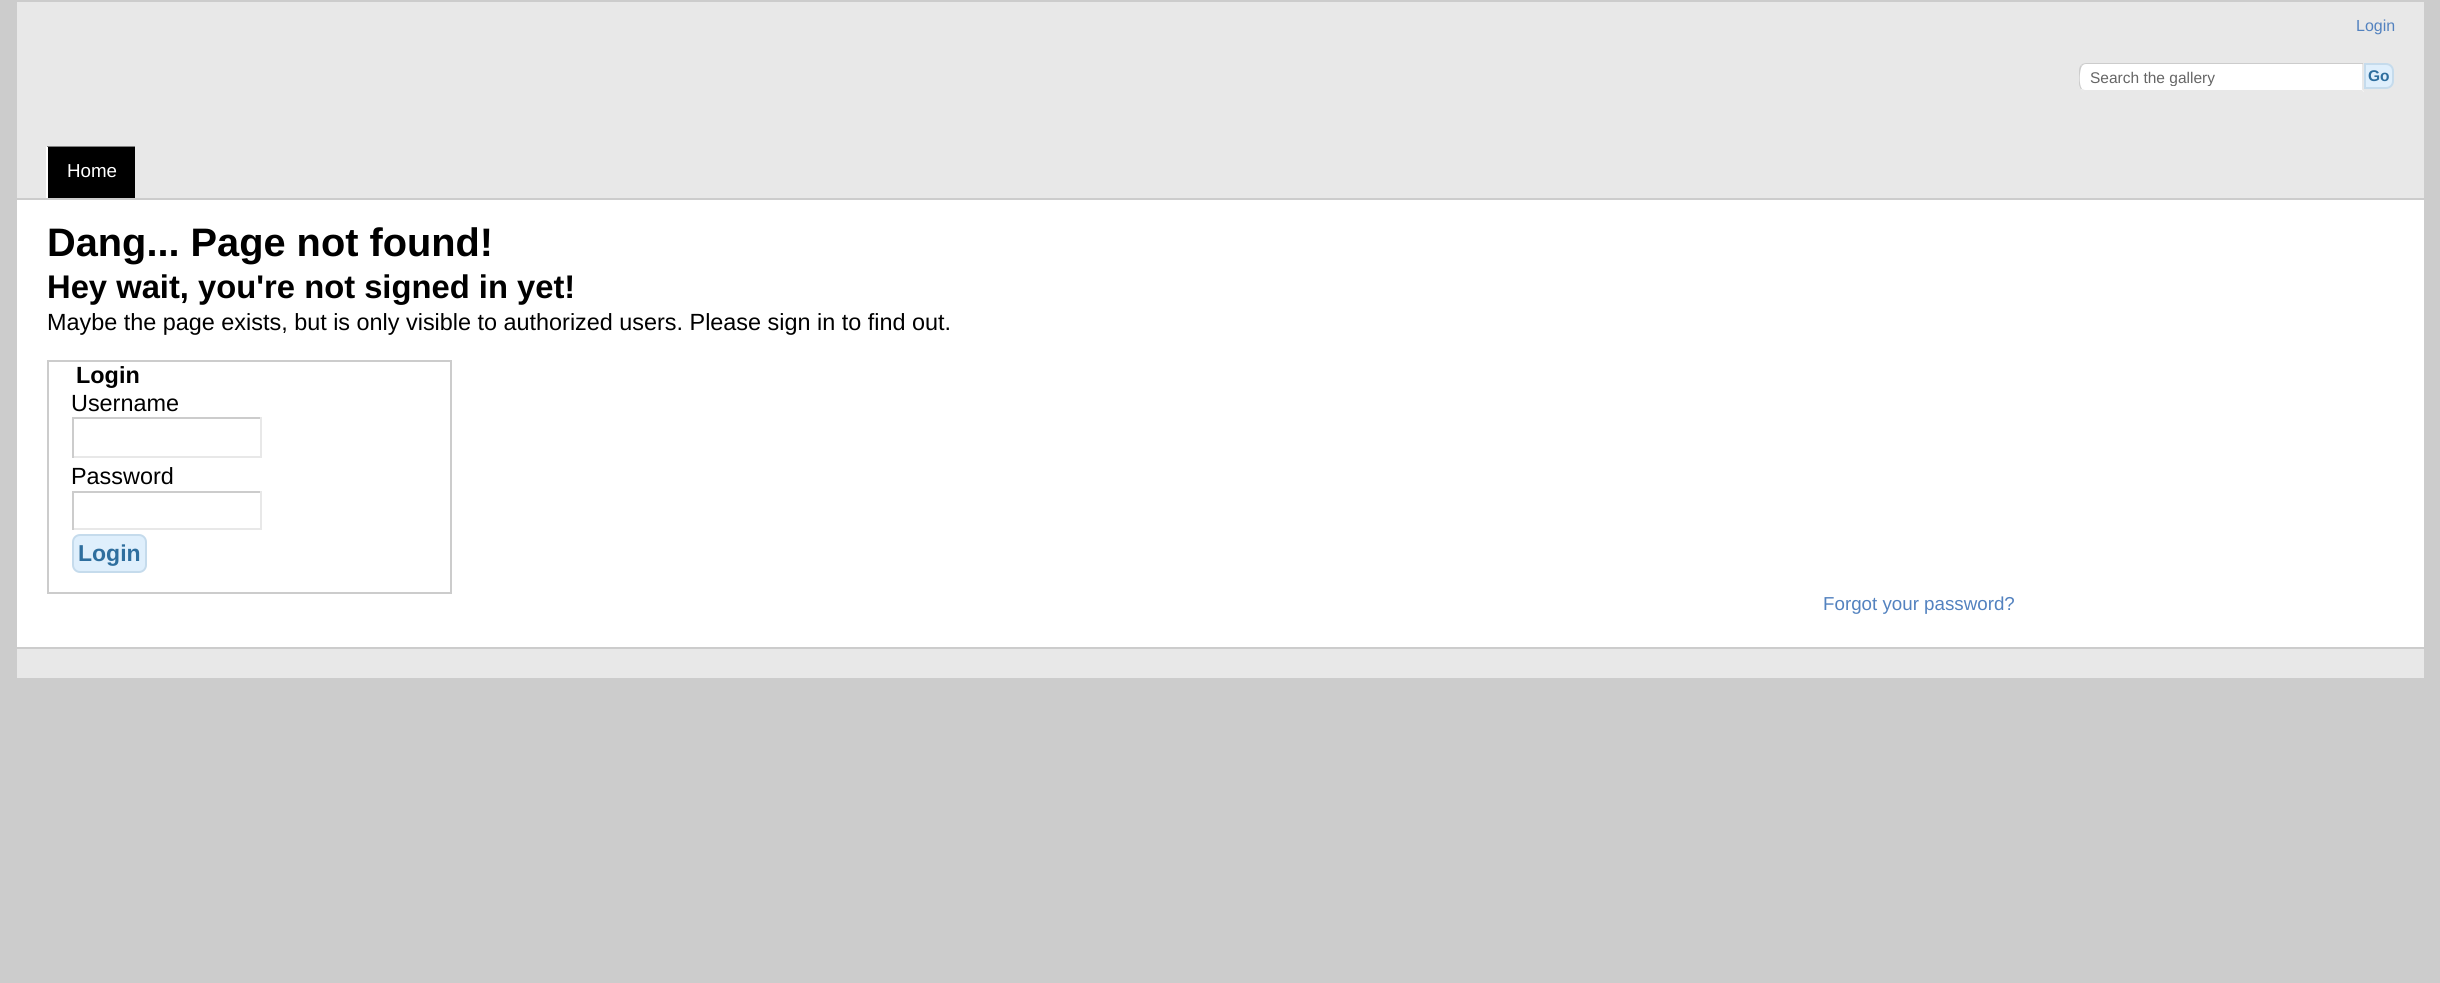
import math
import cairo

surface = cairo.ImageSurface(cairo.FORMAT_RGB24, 2440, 983)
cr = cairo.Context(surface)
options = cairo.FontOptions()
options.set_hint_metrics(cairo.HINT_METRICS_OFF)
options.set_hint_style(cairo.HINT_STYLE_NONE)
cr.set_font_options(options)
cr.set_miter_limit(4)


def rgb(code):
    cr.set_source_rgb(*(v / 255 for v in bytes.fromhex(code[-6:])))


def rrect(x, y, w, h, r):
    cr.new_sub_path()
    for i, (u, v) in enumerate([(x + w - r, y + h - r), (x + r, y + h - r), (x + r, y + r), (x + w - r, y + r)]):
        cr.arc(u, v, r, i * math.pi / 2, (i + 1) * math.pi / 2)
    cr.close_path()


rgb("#cccccc")
cr.paint()
rgb("#ffffff")
cr.rectangle(17, 200, 2407, 447)
cr.fill()
rgb("#e8e8e8")
cr.rectangle(17, 2, 2407, 196)
cr.fill()
rgb("#ffffff")
cr.new_path()
cr.move_to(2087, 63)
cr.line_to(2364, 63)
cr.line_to(2364, 92)
cr.line_to(2087, 92)
cr.curve_to(2082.5, 92, 2079, 88.5, 2079, 84)
cr.line_to(2079, 71)
cr.curve_to(2079, 66.5, 2082.5, 63, 2087, 63)
cr.close_path()
cr.fill()
rgb("#cccccc")
cr.new_path()
cr.move_to(2086, 63)
cr.curve_to(2084, 63, 2082, 64, 2081, 65)
cr.line_to(2082, 66)
cr.curve_to(2083, 65, 2084, 64, 2086, 64)
cr.line_to(2362, 64)
cr.line_to(2362, 65)
cr.line_to(2364, 63)
cr.close_path()
cr.fill()
rgb("#e8e8e8")
cr.new_path()
cr.move_to(2364, 63)
cr.line_to(2362, 65)
cr.line_to(2362, 89.5)
cr.line_to(2364, 91.5)
cr.close_path()
cr.fill()
cr.new_path()
cr.move_to(2364, 92)
cr.line_to(2084, 92)
cr.line_to(2081, 90)
cr.line_to(2082, 89)
cr.curve_to(2083, 89, 2084, 90, 2085, 90)
cr.line_to(2362, 90)
cr.close_path()
cr.fill()
rgb("#cccccc")
cr.new_path()
cr.move_to(2079, 70)
cr.line_to(2079, 84)
cr.curve_to(2079, 86, 2080, 88, 2081, 89.5)
cr.line_to(2082, 88.5)
cr.curve_to(2078.5, 85.5, 2079.5, 69.5, 2082, 66)
cr.line_to(2081, 65)
cr.curve_to(2080, 66, 2079, 68, 2079, 70)
cr.close_path()
cr.fill()
rgb("#dfeffc")
cr.new_path()
cr.move_to(2365, 64)
cr.line_to(2386, 64)
cr.curve_to(2390, 64, 2393, 67, 2393, 71)
cr.line_to(2393, 81)
cr.curve_to(2393, 85, 2390, 88, 2386, 88)
cr.line_to(2365, 88)
cr.close_path()
cr.fill_preserve()
rgb("#c5dbec")
cr.stroke()
rgb("#000000")
cr.rectangle(47, 146, 88, 52)
cr.fill()
rgb("#808080")
cr.new_path()
cr.move_to(46, 146)
cr.line_to(135, 146)
cr.line_to(135, 147)
cr.line_to(48, 147)
cr.close_path()
cr.fill()
rgb("#ffffff")
cr.new_path()
cr.move_to(46, 198)
cr.line_to(46, 146)
cr.line_to(48, 147)
cr.line_to(48, 198)
cr.close_path()
cr.fill()
cr.rectangle(48, 361, 403, 232)
rgb("#cccccc")
cr.stroke()
for x, y, w, h, color in [
    (72, 417, 189, 2, "#cccccc"),
    (260, 417, 2, 41, "#e8e8e8"),
    (72, 456, 189, 2, "#e8e8e8"),
    (72, 417, 2, 41, "#cccccc"),
    (72, 491, 189, 2, "#cccccc"),
    (260, 491, 2, 39, "#e8e8e8"),
    (72, 528, 189, 2, "#e8e8e8"),
    (72, 491, 2, 39, "#cccccc"),
]:
    rgb(color)
    cr.rectangle(x, y, w, h)
    cr.fill()
rgb("#dfeffc")
rrect(73, 535, 73, 37, 7)
cr.fill_preserve()
rgb("#c5dbec")
cr.stroke()
rgb("#e8e8e8")
cr.rectangle(17, 649, 2407, 29)
cr.fill()
cr.select_font_face("Liberation Sans")
cr.set_font_size(16)
rgb("#5382bf")
cr.move_to(2356, 31)
cr.show_text("Login")
cr.save()
cr.rectangle(2090, 69, 262, 17)
cr.clip()
cr.set_font_size(15.5)
rgb("#666666")
cr.move_to(2090, 83)
cr.show_text("Search the gallery")
cr.restore()
cr.select_font_face("Liberation Sans", cairo.FONT_SLANT_NORMAL, cairo.FONT_WEIGHT_BOLD)
cr.set_font_size(15.5)
rgb("#2e6e9e")
cr.move_to(2368, 81)
cr.show_text("Go")
cr.select_font_face("Liberation Sans")
cr.set_font_size(18.75)
rgb("#ffffff")
cr.move_to(67, 177)
cr.show_text("Home")
cr.select_font_face("Liberation Sans", cairo.FONT_SLANT_NORMAL, cairo.FONT_WEIGHT_BOLD)
cr.set_font_size(39.75)
rgb("#000000")
cr.move_to(47, 256)
cr.show_text("Dang... Page not found!")
cr.set_font_size(32.75)
cr.move_to(47, 298)
cr.show_text("Hey wait, you're not signed in yet!")
cr.select_font_face("Liberation Sans")
cr.set_font_size(23.4)
cr.move_to(47, 330)
cr.show_text("Maybe the page exists, but is only visible to authorized users. Please sign in to find out.")
cr.select_font_face("Liberation Sans", cairo.FONT_SLANT_NORMAL, cairo.FONT_WEIGHT_BOLD)
cr.move_to(76, 383)
cr.show_text("Login")
cr.select_font_face("Liberation Sans")
cr.move_to(71, 411)
cr.show_text("Username")
cr.move_to(71, 484)
cr.show_text("Password")
cr.select_font_face("Liberation Sans", cairo.FONT_SLANT_NORMAL, cairo.FONT_WEIGHT_BOLD)
cr.set_font_size(23)
rgb("#2e6e9e")
cr.move_to(78, 561)
cr.show_text("Login")
cr.select_font_face("Liberation Sans")
cr.set_font_size(18.75)
rgb("#5382bf")
cr.move_to(1823, 610)
cr.show_text("Forgot your password?")
surface.write_to_png("page.png")
